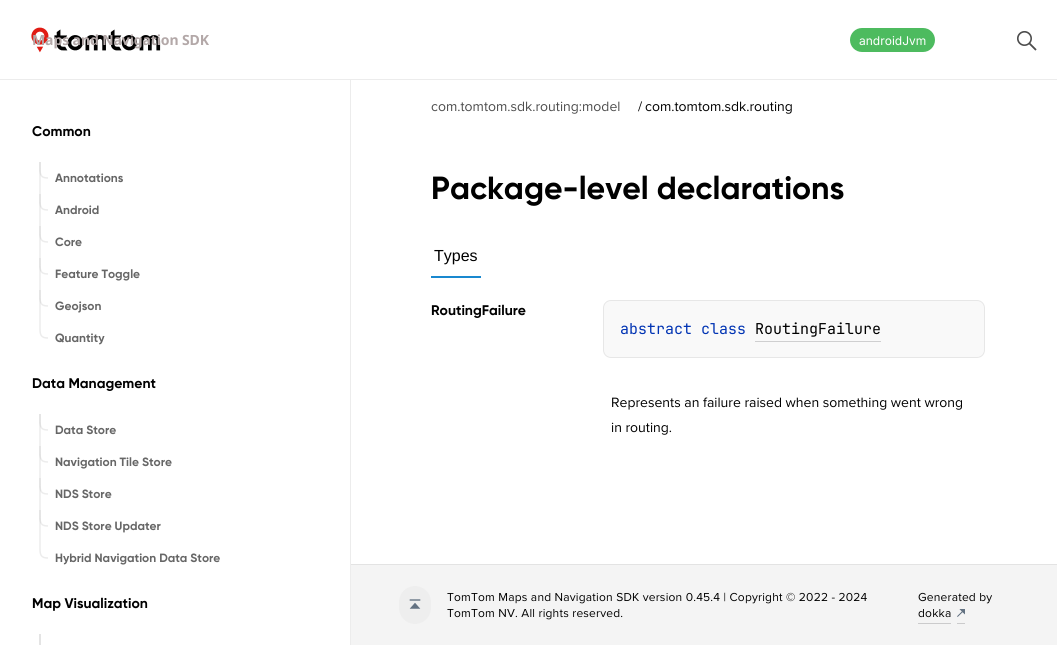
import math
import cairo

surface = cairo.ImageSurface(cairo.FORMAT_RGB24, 1057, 645)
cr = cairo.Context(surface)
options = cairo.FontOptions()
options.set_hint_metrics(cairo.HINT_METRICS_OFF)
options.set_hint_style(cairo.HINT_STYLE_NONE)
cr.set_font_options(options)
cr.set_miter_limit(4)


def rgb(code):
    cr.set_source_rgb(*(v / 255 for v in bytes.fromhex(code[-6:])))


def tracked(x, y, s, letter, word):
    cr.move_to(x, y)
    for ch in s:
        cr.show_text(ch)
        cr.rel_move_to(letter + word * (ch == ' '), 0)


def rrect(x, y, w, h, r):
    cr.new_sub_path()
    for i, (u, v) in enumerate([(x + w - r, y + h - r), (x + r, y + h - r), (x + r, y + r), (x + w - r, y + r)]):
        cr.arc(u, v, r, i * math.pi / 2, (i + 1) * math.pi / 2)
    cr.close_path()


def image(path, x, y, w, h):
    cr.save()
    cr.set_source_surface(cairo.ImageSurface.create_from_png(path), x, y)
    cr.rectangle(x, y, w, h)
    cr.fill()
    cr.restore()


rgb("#ffffff")
cr.paint()
rgb("#ececec")
cr.rectangle(0, 79, 1057, 1)
cr.fill()
image("img/1.png", 31, 27, 130, 26)
rgb("#4dbb5f")
rrect(850, 28, 85, 24, 12)
cr.fill()
image("img/2.png", 1017, 31, 20, 20)
rgb("#ececec")
cr.rectangle(350, 80, 1, 565)
cr.fill()
cr.save()
cr.rectangle(32, 162, 16, 32)
cr.clip()
cr.new_path()
cr.move_to(40, 162)
cr.line_to(40, 194)
cr.set_line_width(1.5)
cr.set_line_cap(cairo.LINE_CAP_ROUND)
cr.stroke()
cr.new_path()
cr.move_to(40, 162)
cr.line_to(40, 168.5)
cr.curve_to(40, 175, 41, 178, 48, 178)
cr.set_source_rgba(0.502, 0.502, 0.502, 0.15)
cr.stroke()
cr.restore()
cr.save()
cr.rectangle(32, 194, 16, 32)
cr.clip()
cr.new_path()
cr.move_to(40, 194)
cr.line_to(40, 226)
cr.set_line_width(1.5)
cr.set_line_cap(cairo.LINE_CAP_ROUND)
cr.stroke()
cr.new_path()
cr.move_to(40, 194)
cr.line_to(40, 200.5)
cr.curve_to(40, 207, 41, 210, 48, 210)
cr.set_source_rgba(0.502, 0.502, 0.502, 0.15)
cr.stroke()
cr.restore()
cr.save()
cr.rectangle(32, 226, 16, 32)
cr.clip()
cr.new_path()
cr.move_to(40, 226)
cr.line_to(40, 258)
cr.set_line_width(1.5)
cr.set_line_cap(cairo.LINE_CAP_ROUND)
cr.stroke()
cr.new_path()
cr.move_to(40, 226)
cr.line_to(40, 232.5)
cr.curve_to(40, 239, 41, 242, 48, 242)
cr.set_source_rgba(0.502, 0.502, 0.502, 0.15)
cr.stroke()
cr.restore()
cr.save()
cr.rectangle(32, 258, 16, 32)
cr.clip()
cr.new_path()
cr.move_to(40, 258)
cr.line_to(40, 290)
cr.set_line_width(1.5)
cr.set_line_cap(cairo.LINE_CAP_ROUND)
cr.stroke()
cr.new_path()
cr.move_to(40, 258)
cr.line_to(40, 264.5)
cr.curve_to(40, 271, 41, 274, 48, 274)
cr.set_source_rgba(0.502, 0.502, 0.502, 0.15)
cr.stroke()
cr.restore()
cr.save()
cr.rectangle(32, 290, 16, 32)
cr.clip()
cr.new_path()
cr.move_to(40, 290)
cr.line_to(40, 322)
cr.set_line_width(1.5)
cr.set_line_cap(cairo.LINE_CAP_ROUND)
cr.stroke()
cr.new_path()
cr.move_to(40, 290)
cr.line_to(40, 296.5)
cr.curve_to(40, 303, 41, 306, 48, 306)
cr.set_source_rgba(0.502, 0.502, 0.502, 0.15)
cr.stroke()
cr.restore()
cr.save()
cr.rectangle(32, 322, 16, 32)
cr.clip()
cr.new_path()
cr.move_to(40, 322)
cr.line_to(40, 328.5)
cr.curve_to(40, 335, 41, 338, 48, 338)
cr.set_line_width(1.5)
cr.set_line_cap(cairo.LINE_CAP_ROUND)
cr.stroke()
cr.restore()
cr.save()
cr.rectangle(32, 414, 16, 32)
cr.clip()
cr.new_path()
cr.move_to(40, 414)
cr.line_to(40, 446)
cr.set_line_width(1.5)
cr.set_line_cap(cairo.LINE_CAP_ROUND)
cr.stroke()
cr.new_path()
cr.move_to(40, 414)
cr.line_to(40, 420.5)
cr.curve_to(40, 427, 41, 430, 48, 430)
cr.set_source_rgba(0.502, 0.502, 0.502, 0.15)
cr.stroke()
cr.restore()
cr.save()
cr.rectangle(32, 446, 16, 32)
cr.clip()
cr.new_path()
cr.move_to(40, 446)
cr.line_to(40, 478)
cr.set_line_width(1.5)
cr.set_line_cap(cairo.LINE_CAP_ROUND)
cr.stroke()
cr.new_path()
cr.move_to(40, 446)
cr.line_to(40, 452.5)
cr.curve_to(40, 459, 41, 462, 48, 462)
cr.set_source_rgba(0.502, 0.502, 0.502, 0.15)
cr.stroke()
cr.restore()
cr.save()
cr.rectangle(32, 478, 16, 32)
cr.clip()
cr.new_path()
cr.move_to(40, 478)
cr.line_to(40, 510)
cr.set_line_width(1.5)
cr.set_line_cap(cairo.LINE_CAP_ROUND)
cr.stroke()
cr.new_path()
cr.move_to(40, 478)
cr.line_to(40, 484.5)
cr.curve_to(40, 491, 41, 494, 48, 494)
cr.set_source_rgba(0.502, 0.502, 0.502, 0.15)
cr.stroke()
cr.restore()
cr.save()
cr.rectangle(32, 510, 16, 32)
cr.clip()
cr.new_path()
cr.move_to(40, 510)
cr.line_to(40, 542)
cr.set_line_width(1.5)
cr.set_line_cap(cairo.LINE_CAP_ROUND)
cr.stroke()
cr.new_path()
cr.move_to(40, 510)
cr.line_to(40, 516.5)
cr.curve_to(40, 523, 41, 526, 48, 526)
cr.set_source_rgba(0.502, 0.502, 0.502, 0.15)
cr.stroke()
cr.restore()
cr.save()
cr.rectangle(32, 542, 16, 32)
cr.clip()
cr.new_path()
cr.move_to(40, 542)
cr.line_to(40, 548.5)
cr.curve_to(40, 555, 41, 558, 48, 558)
cr.set_line_width(1.5)
cr.set_line_cap(cairo.LINE_CAP_ROUND)
cr.stroke()
cr.restore()
image("img/3.png", 39, 634, 2, 11)
rgb("#1988cf")
cr.rectangle(431, 276, 50, 2)
cr.fill()
rgb("#f9f9f9")
rrect(603, 300, 382, 58, 8)
cr.fill()
rrect(603.5, 300.5, 381, 57, 7.5)
cr.set_source_rgba(0.502, 0.502, 0.502, 0.15)
cr.set_line_width(1)
cr.stroke()
for x, y, w, h, color in [
    (755, 341, 126, 1, "#cfcfd0"),
    (351, 565, 706, 80, "#f4f4f4"),
    (351, 564, 706, 1, "#e3e3e3"),
]:
    rgb(color)
    cr.rectangle(x, y, w, h)
    cr.fill()
rgb("#eeeeee")
rrect(399, 586, 32, 38, 16)
cr.fill()
image("img/4.png", 409, 599, 12, 10)
rgb("#cbcbcc")
cr.rectangle(918, 623, 33, 1)
cr.fill()
cr.rectangle(957, 623, 8, 1)
cr.fill()
image("img/5.png", 957, 609, 8, 8)
cr.select_font_face("Noto Sans", cairo.FONT_SLANT_NORMAL, cairo.FONT_WEIGHT_BOLD)
cr.set_font_size(14)
rgb("#b3a8a8")
tracked(32, 45, "Maps and Navigation SDK", -0.1, 0)
cr.select_font_face("Inter")
cr.set_font_size(12)
rgb("#ffffff")
cr.move_to(859, 45)
cr.show_text("androidJvm")
cr.select_font_face("Gilroy", cairo.FONT_SLANT_NORMAL, cairo.FONT_WEIGHT_BOLD)
cr.set_font_size(14)
rgb("#000000")
cr.move_to(32, 136)
cr.show_text("Common")
cr.set_font_size(12)
rgb("#666666")
for x, y, s in [
    (55, 182, "Annotations"),
    (55, 214, "Android"),
    (55, 246, "Core"),
    (55, 278, "Feature Toggle"),
    (55, 310, "Geojson"),
    (55, 342, "Quantity"),
]:
    cr.move_to(x, y)
    cr.show_text(s)
cr.set_font_size(14)
rgb("#000000")
cr.move_to(32, 388)
cr.show_text("Data Management")
cr.set_font_size(12)
rgb("#666666")
for x, y, s in [
    (55, 434, "Data Store"),
    (55, 466, "Navigation Tile Store"),
    (55, 498, "NDS Store"),
    (55, 530, "NDS Store Updater"),
    (55, 562, "Hybrid Navigation Data Store"),
]:
    cr.move_to(x, y)
    cr.show_text(s)
cr.set_font_size(14)
rgb("#000000")
cr.move_to(32, 608)
cr.show_text("Map Visualization")
cr.select_font_face("Proxima Nova")
rgb("#4d4d4d")
cr.move_to(431, 111)
cr.show_text("com.tomtom.sdk.routing:model")
rgb("#000000")
cr.move_to(638, 111)
cr.show_text("/")
cr.move_to(645, 111)
cr.show_text("com.tomtom.sdk.routing")
cr.select_font_face("Gilroy", cairo.FONT_SLANT_NORMAL, cairo.FONT_WEIGHT_BOLD)
cr.set_font_size(32)
cr.move_to(431, 199)
cr.show_text("Package-level declarations")
cr.select_font_face("Liberation Sans")
cr.set_font_size(16)
cr.move_to(434, 261)
cr.show_text("Types")
cr.select_font_face("Gilroy", cairo.FONT_SLANT_NORMAL, cairo.FONT_WEIGHT_BOLD)
cr.set_font_size(14)
cr.move_to(431, 315)
cr.show_text("RoutingFailure")
cr.select_font_face("JetBrains Mono")
cr.set_font_size(15)
rgb("#0033b3")
cr.move_to(620, 334)
cr.show_text("abstract class")
rgb("#000000")
cr.move_to(755, 334)
cr.show_text("RoutingFailure")
cr.select_font_face("Proxima Nova")
cr.set_font_size(14)
cr.move_to(611, 407)
cr.show_text("Represents an failure raised when something went wrong")
cr.move_to(611, 432)
cr.show_text("in routing.")
cr.set_font_size(12)
for x, y, s in [
    (447, 601, "TomTom Maps and Navigation SDK version 0.45.4 | Copyright © 2022 - 2024"),
    (447, 617, "TomTom NV. All rights reserved."),
    (918, 601, "Generated by"),
    (918, 617, "dokka"),
]:
    tracked(x, y, s, 0.2, 0)
surface.write_to_png("page.png")
